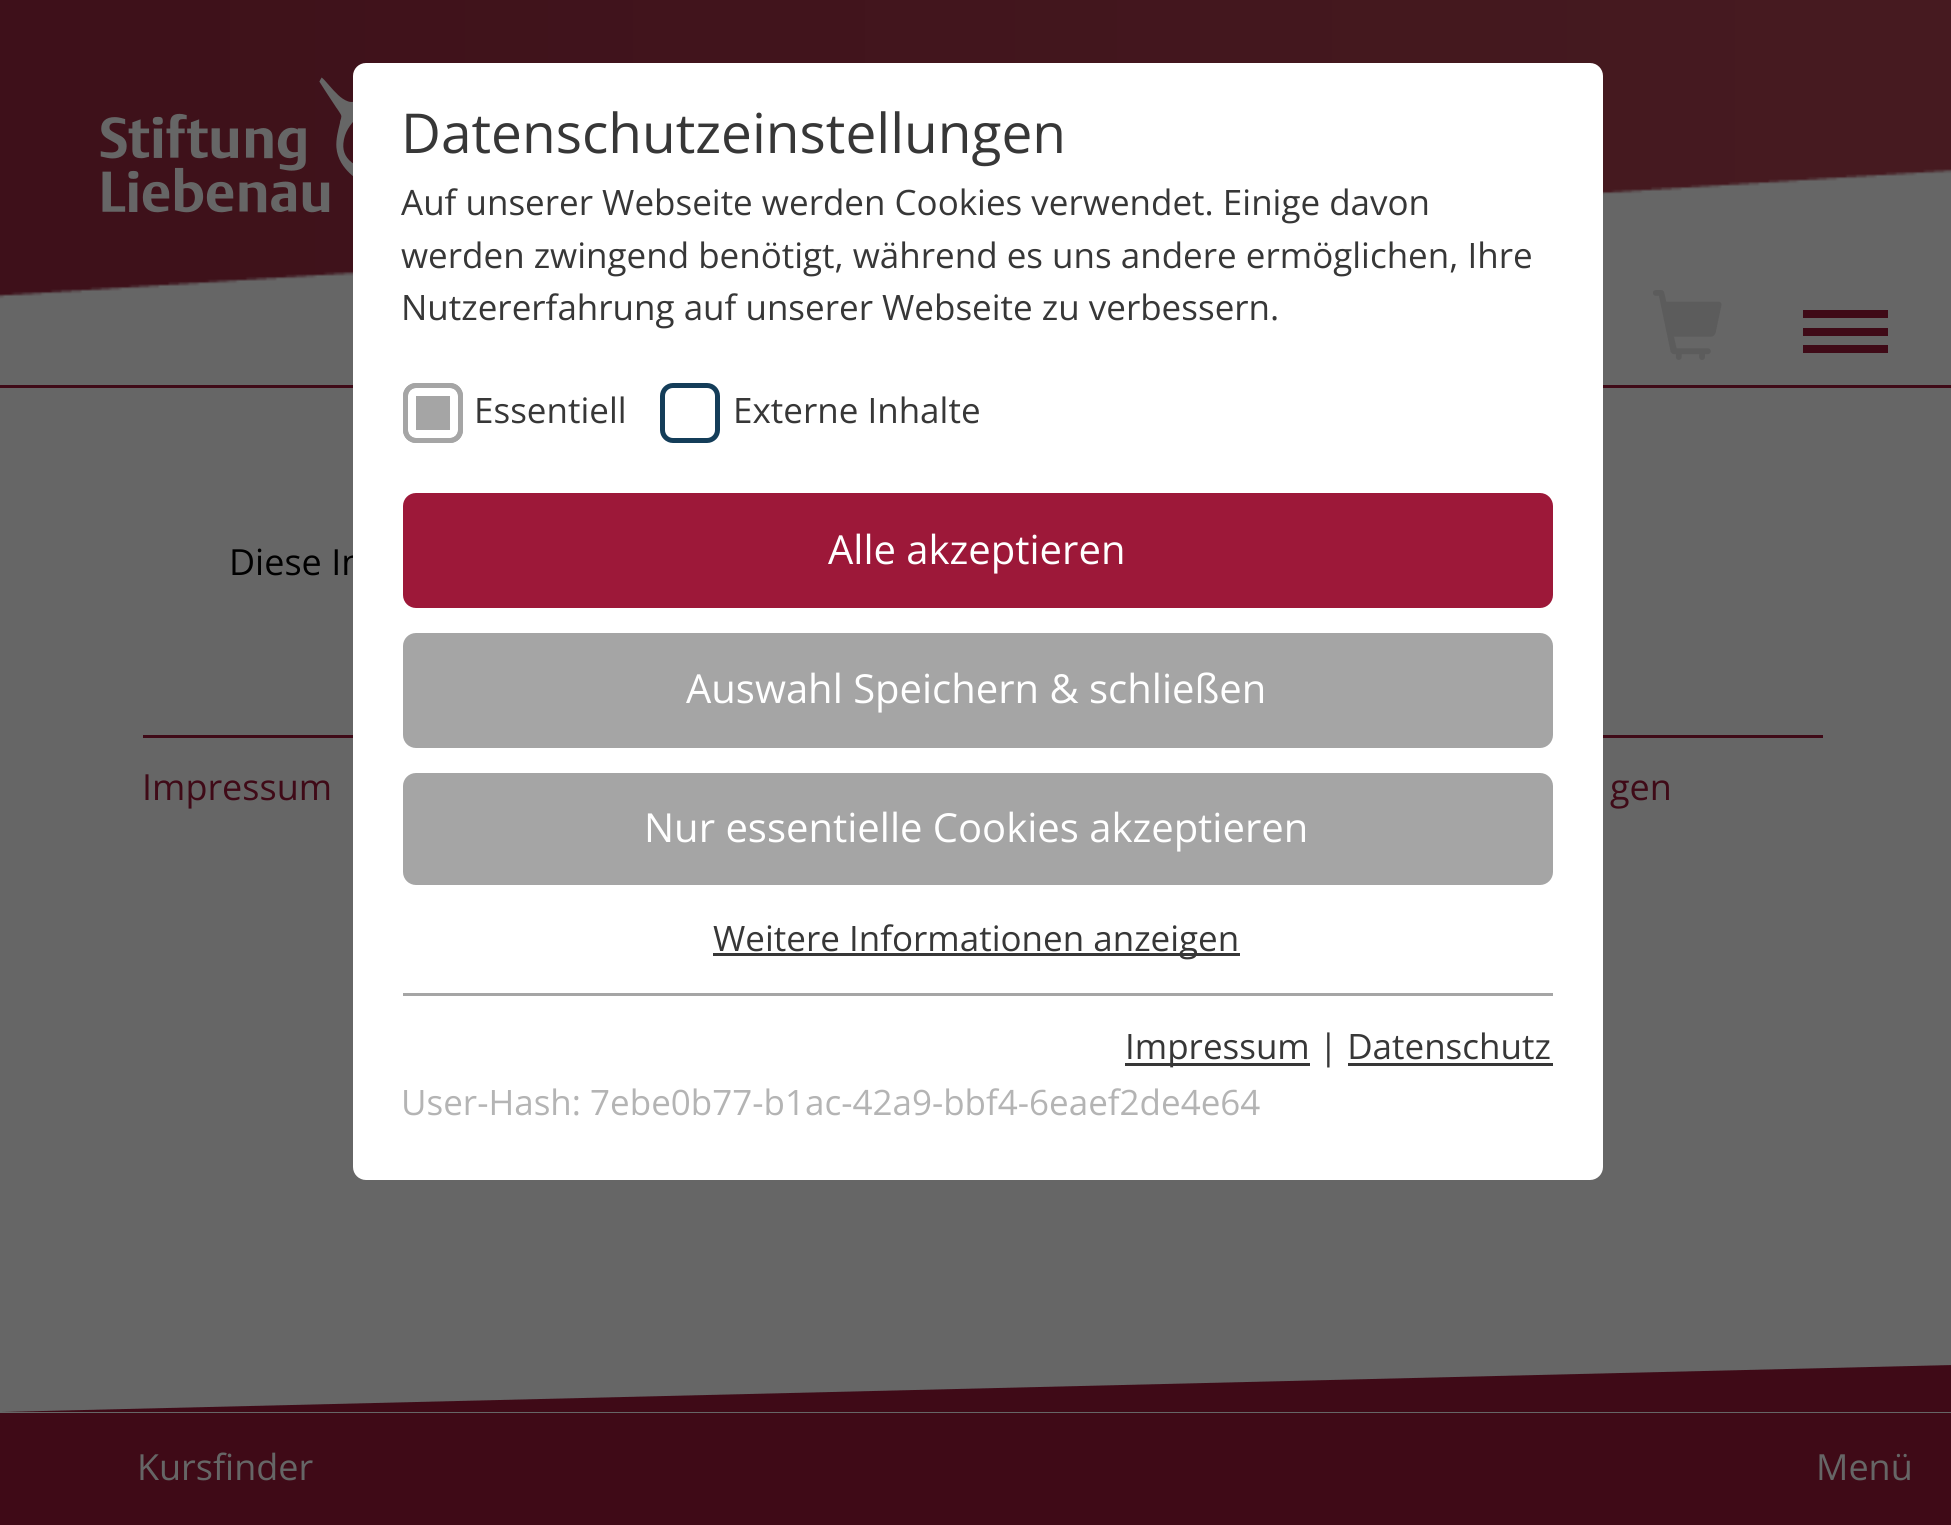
import math
import cairo

surface = cairo.ImageSurface(cairo.FORMAT_RGB24, 1951, 1525)
cr = cairo.Context(surface)
options = cairo.FontOptions()
options.set_hint_metrics(cairo.HINT_METRICS_OFF)
options.set_hint_style(cairo.HINT_STYLE_NONE)
cr.set_font_options(options)
cr.set_miter_limit(4)


def rgb(code):
    cr.set_source_rgb(*(v / 255 for v in bytes.fromhex(code[-6:])))


def rrect(x, y, w, h, r):
    cr.new_sub_path()
    for i, (u, v) in enumerate([(x + w - r, y + h - r), (x + r, y + h - r), (x + r, y + r), (x + w - r, y + r)]):
        cr.arc(u, v, r, i * math.pi / 2, (i + 1) * math.pi / 2)
    cr.close_path()


def image(path, x, y, w, h):
    cr.save()
    cr.set_source_surface(cairo.ImageSurface.create_from_png(path), x, y)
    cr.rectangle(x, y, w, h)
    cr.fill()
    cr.restore()


rgb("#666666")
cr.paint()
image("img/1.png", 0, 0, 1951, 299)
image("img/2.png", 100, 77, 253, 136)
image("img/3.png", 1653, 290, 69, 70)
for x, y, w, h, color in [
    (1803, 310, 85, 8, "#3f0a17"),
    (1803, 328, 85, 8, "#3f0a17"),
    (1803, 345, 85, 8, "#3f0a17"),
    (0, 385, 1951, 3, "#3f0a17"),
    (143, 735, 1680, 3, "#3f0a17"),
    (0, 1413, 1951, 112, "#3f0a17"),
]:
    rgb(color)
    cr.rectangle(x, y, w, h)
    cr.fill()
cr.new_path()
cr.move_to(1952, 1412)
cr.line_to(0, 1412)
cr.line_to(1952, 1365)
cr.close_path()
cr.fill()
cr.select_font_face("Open Sans")
cr.set_font_size(36)
rgb("#000000")
cr.move_to(229, 575)
cr.show_text("Diese In")
rgb("#ffffff")
rrect(353, 63, 1250, 1117, 13)
cr.fill()
cr.set_font_size(35)
rgb("#b4b4b4")
cr.move_to(401, 1115)
cr.show_text("User-Hash: 7ebe0b77-b1ac-42a9-bbf4-6eaef2de4e64")
rgb("#373737")
cr.rectangle(713, 953, 527, 3)
cr.fill()
cr.move_to(713, 951)
cr.show_text("Weitere Informationen anzeigen")
rgb("#a5a5a5")
rrect(403, 773, 1150, 112, 13)
cr.fill()
cr.set_font_size(40)
rgb("#ffffff")
cr.move_to(644, 842)
cr.show_text("Nur essentielle Cookies akzeptieren")
rgb("#a5a5a5")
rrect(403, 633, 1150, 115, 13)
cr.fill()
rgb("#ffffff")
cr.move_to(686, 703)
cr.show_text("Auswahl Speichern & schließen")
rgb("#9d1839")
rrect(403, 493, 1150, 115, 13)
cr.fill()
rgb("#ffffff")
cr.move_to(828, 564)
cr.show_text("Alle akzeptieren")
cr.set_font_size(35)
rgb("#373737")
cr.move_to(733, 423)
cr.show_text("Externe Inhalte")
rrect(662.5, 385.5, 55, 55, 10.5)
rgb("#143d59")
cr.set_line_width(5)
cr.stroke()
rgb("#373737")
cr.move_to(474, 423)
cr.show_text("Essentiell")
rgb("#a5a5a5")
rrect(403, 383, 60, 60, 13)
cr.fill()
rrect(412, 392, 42, 42, 4)
rgb("#ffffff")
cr.set_line_width(8)
cr.stroke()
rrect(405.5, 385.5, 55, 55, 10.5)
rgb("#a5a5a5")
cr.set_line_width(5)
cr.stroke()
rgb("#373737")
for x, y, s in [
    (401, 320, "Nutzererfahrung auf unserer Webseite zu verbessern."),
    (401, 268, "werden zwingend benötigt, während es uns andere ermöglichen, Ihre"),
    (401, 215, "Auf unserer Webseite werden Cookies verwendet. Einige davon"),
]:
    cr.move_to(x, y)
    cr.show_text(s)
cr.set_font_size(55)
cr.move_to(401, 153)
cr.show_text("Datenschutzeinstellungen")
cr.rectangle(1348, 1063, 205, 3)
cr.fill()
cr.rectangle(1125, 1063, 185, 3)
cr.fill()
cr.set_font_size(35)
cr.move_to(1125, 1059)
cr.show_text("Impressum | Datenschutz")
rgb("#a5a5a5")
cr.rectangle(403, 993, 1150, 3)
cr.fill()
cr.set_font_size(36)
rgb("#3f0a17")
cr.move_to(142, 800)
cr.show_text("Impressum")
cr.move_to(1610, 800)
cr.show_text("gen")
rgb("#666666")
cr.move_to(137, 1480)
cr.show_text("Kursfinder")
cr.move_to(1816, 1480)
cr.show_text("Menü")
surface.write_to_png("page.png")
